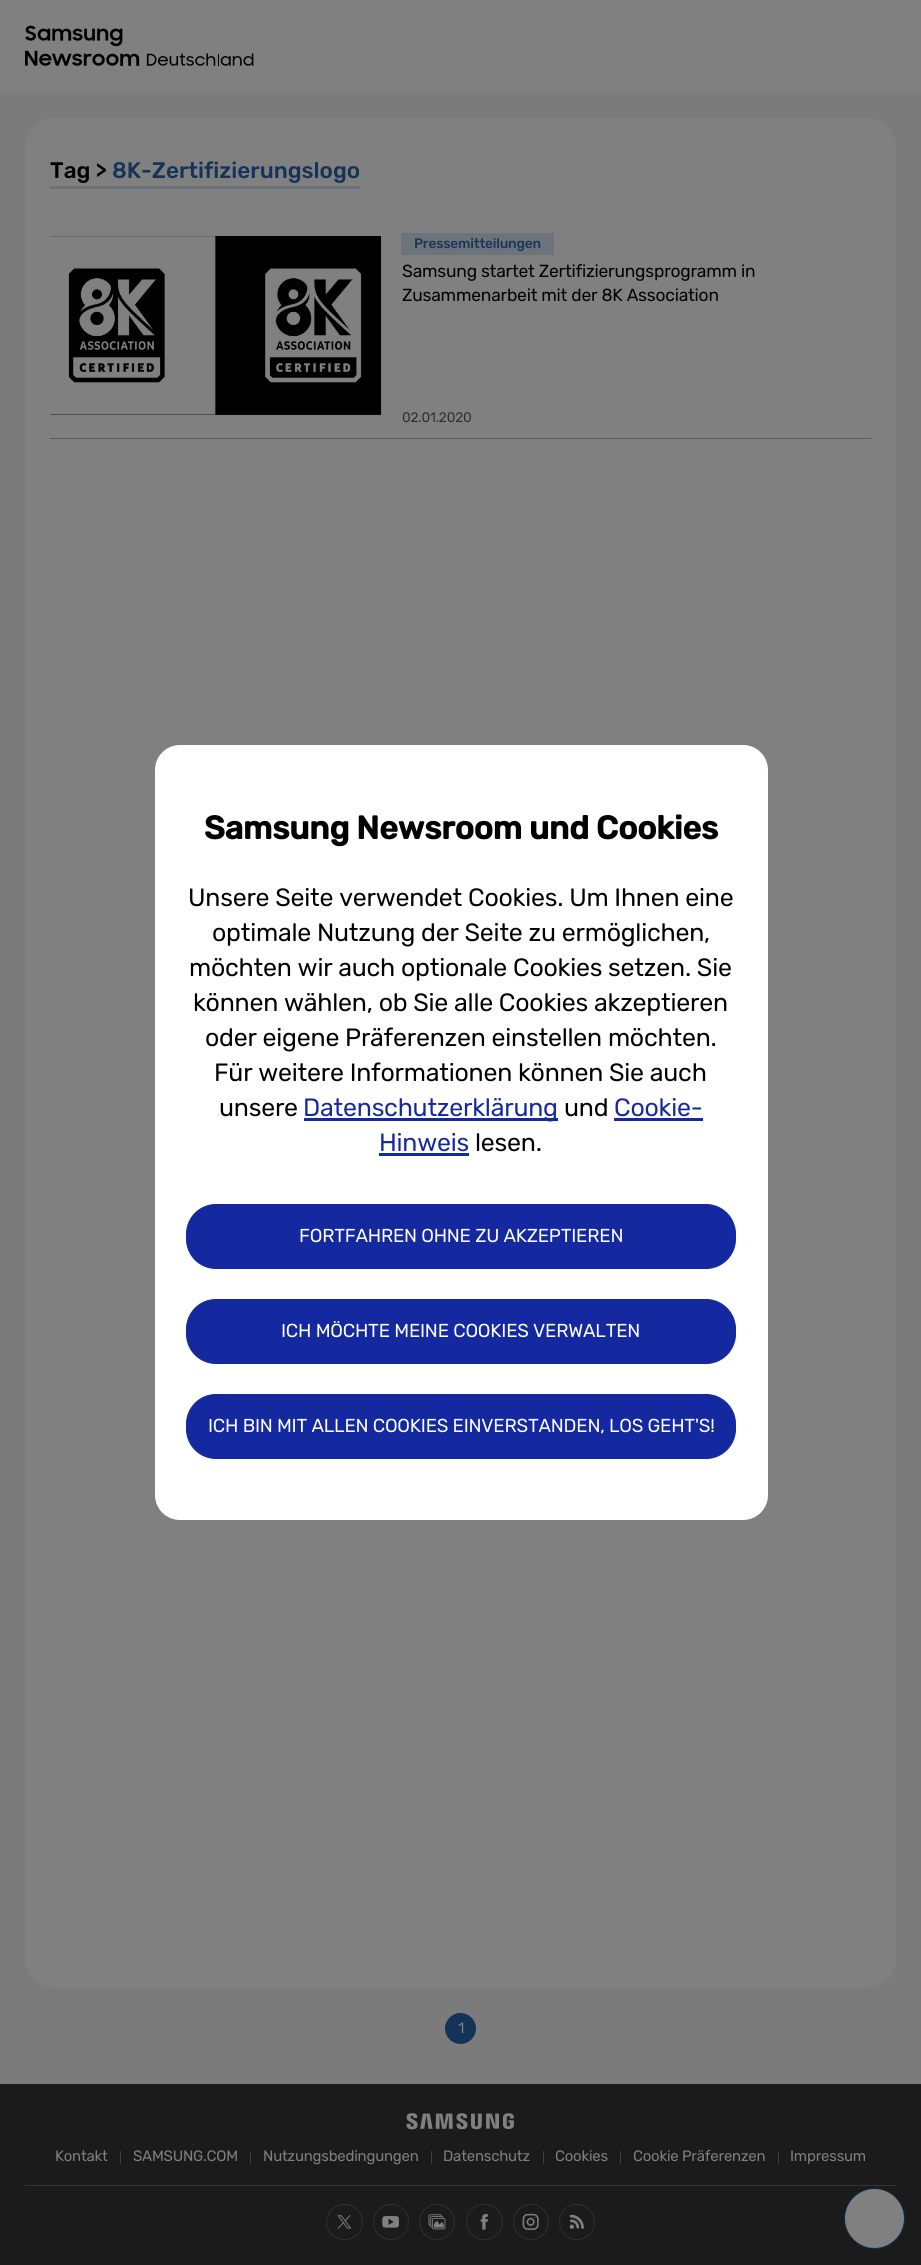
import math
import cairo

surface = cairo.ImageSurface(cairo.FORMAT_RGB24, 921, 2265)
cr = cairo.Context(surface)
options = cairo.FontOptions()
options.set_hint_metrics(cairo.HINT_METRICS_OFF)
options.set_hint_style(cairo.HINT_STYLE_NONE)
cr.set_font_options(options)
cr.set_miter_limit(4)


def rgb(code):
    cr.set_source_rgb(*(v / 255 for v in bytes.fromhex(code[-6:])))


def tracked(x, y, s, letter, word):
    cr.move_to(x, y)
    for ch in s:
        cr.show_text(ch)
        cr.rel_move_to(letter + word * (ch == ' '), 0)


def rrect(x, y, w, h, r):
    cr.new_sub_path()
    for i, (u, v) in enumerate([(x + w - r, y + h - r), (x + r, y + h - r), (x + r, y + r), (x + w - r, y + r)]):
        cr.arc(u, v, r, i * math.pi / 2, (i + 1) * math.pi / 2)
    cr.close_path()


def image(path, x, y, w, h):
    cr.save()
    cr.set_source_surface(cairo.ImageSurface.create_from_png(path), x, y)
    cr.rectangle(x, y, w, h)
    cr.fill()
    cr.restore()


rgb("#808080")
cr.paint()
image("img/1.png", 25, 25, 229, 41)
rgb("#7b7b7b")
cr.rectangle(0, 93, 921, 1991)
cr.fill()
rgb("#808080")
rrect(25, 118, 871, 1870, 30)
cr.fill()
rgb("#6d737a")
cr.rectangle(50, 186, 310, 3)
cr.fill()
rgb("#5e5e5e")
cr.rectangle(50, 438, 821, 1)
cr.fill()
image("img/2.png", 50, 236, 332, 179)
rgb("#6d737a")
cr.rectangle(401, 233, 153, 22)
cr.fill()
rgb("#153257")
cr.arc(460.5, 2028.5, 15.5, 0, 2 * math.pi)
cr.fill()
rgb("#1b1b1b")
cr.rectangle(0, 2084, 921, 181)
cr.fill()
rgb("#343435")
cr.rectangle(25, 2185, 871, 1)
cr.fill()
image("img/3.png", 406, 2113, 108, 17)
for x, y, w, h, color in [
    (120, 2151, 1, 13, "#3d3d3d"),
    (250, 2151, 1, 13, "#3d3d3d"),
    (431, 2151, 1, 13, "#3d3d3d"),
    (543, 2151, 1, 13, "#3d3d3d"),
    (620, 2151, 1, 13, "#3d3d3d"),
    (778, 2151, 1, 13, "#3d3d3d"),
]:
    rgb(color)
    cr.rectangle(x, y, w, h)
    cr.fill()
rrect(326.5, 2204.5, 36, 35, 17.5)
rgb("#2e2e2e")
cr.set_line_width(1)
cr.stroke()
image("img/4.png", 337, 2215, 15, 14)
cr.arc(391, 2222, 17.5, 0, 2 * math.pi)
cr.stroke()
image("img/5.png", 382, 2216, 17, 12)
cr.arc(437, 2222, 17.5, 0, 2 * math.pi)
cr.stroke()
image("img/6.png", 428, 2214, 18, 16)
rrect(466.5, 2204.5, 36, 35, 17.5)
cr.stroke()
image("img/7.png", 480, 2214, 8, 16)
cr.arc(531, 2222, 17.5, 0, 2 * math.pi)
cr.stroke()
image("img/8.png", 522, 2213, 17, 17)
cr.arc(577, 2222, 17.5, 0, 2 * math.pi)
cr.stroke()
image("img/9.png", 569, 2214, 15, 15)
rgb("#808080")
cr.arc(874.5, 2218.5, 30, 0, 2 * math.pi)
cr.fill_preserve()
rgb("#072a54")
cr.stroke()
rgb("#ffffff")
rrect(155, 745, 613, 775, 25)
cr.fill()
for x, y, w, h, color in [
    (304, 1118, 254, 3, "#1429a0"),
    (614, 1118, 89, 3, "#1429a0"),
    (379, 1153, 90, 3, "#1429a0"),
]:
    rgb(color)
    cr.rectangle(x, y, w, h)
    cr.fill()
rgb("#1428a0")
rrect(186.5, 1204.5, 549, 64, 29.5)
cr.fill_preserve()
rgb("#1429a0")
cr.stroke()
rgb("#1428a0")
rrect(186.5, 1299.5, 549, 64, 29.5)
cr.fill_preserve()
rgb("#1429a0")
cr.stroke()
rgb("#1428a0")
rrect(186.5, 1394.5, 549, 64, 29.5)
cr.fill_preserve()
rgb("#1429a0")
cr.stroke()
cr.select_font_face("Rubik Medium")
cr.set_font_size(22.5)
rgb("#000000")
cr.move_to(50, 178)
cr.show_text("Tag >")
rgb("#153257")
cr.move_to(112, 178)
cr.show_text("8K-Zertifizierungslogo")
cr.set_font_size(13.75)
rgb("#1b3659")
tracked(414, 248, "Pressemitteilungen", -0.22, 0)
cr.select_font_face("Rubik")
cr.set_font_size(17.5)
rgb("#000000")
tracked(402, 277, "Samsung startet Zertifizierungsprogramm in", -0.22, 0)
tracked(402, 301, "Zusammenarbeit mit der 8K Association", -0.22, 0)
cr.set_font_size(13.75)
rgb("#2f2f2f")
tracked(402, 422, "02.01.2020", -0.22, 0)
cr.set_font_size(15)
rgb("#808080")
for x, y, s in [
    (458, 2033, "1"),
    (55, 2161, "Kontakt"),
    (133, 2161, "SAMSUNG.COM"),
    (263, 2161, "Nutzungsbedingungen"),
    (443, 2161, "Datenschutz"),
    (555, 2161, "Cookies"),
    (633, 2161, "Cookie Präferenzen"),
    (790, 2161, "Impressum"),
]:
    tracked(x, y, s, -0.22, 0)
cr.select_font_face("Rubik", cairo.FONT_SLANT_NORMAL, cairo.FONT_WEIGHT_BOLD)
cr.set_font_size(32.5)
rgb("#000000")
tracked(204, 839, "Samsung Newsroom und Cookies", -0.22, 0)
cr.select_font_face("Rubik")
cr.set_font_size(25)
for x, y, s in [
    (188, 906, "Unsere Seite verwendet Cookies. Um Ihnen eine"),
    (212, 941, "optimale Nutzung der Seite zu ermöglichen,"),
    (189, 976, "möchten wir auch optionale Cookies setzen. Sie"),
    (193, 1011, "können wählen, ob Sie alle Cookies akzeptieren"),
    (205, 1046, "oder eigene Präferenzen einstellen möchten."),
    (214, 1081, "Für weitere Informationen können Sie auch"),
    (219, 1116, "unsere"),
]:
    tracked(x, y, s, -0.22, 0)
rgb("#1429a0")
tracked(303, 1116, "Datenschutzerklärung", -0.22, 0)
rgb("#000000")
tracked(564, 1116, "und", -0.22, 0)
rgb("#1429a0")
tracked(614, 1116, "Cookie-", -0.22, 0)
tracked(379, 1151, "Hinweis", -0.22, 0)
rgb("#000000")
tracked(475, 1151, "lesen.", -0.22, 0)
cr.set_font_size(18.75)
rgb("#ffffff")
for x, y, s in [
    (299, 1242, "FORTFAHREN OHNE ZU AKZEPTIEREN"),
    (281, 1337, "ICH MÖCHTE MEINE COOKIES VERWALTEN"),
    (208, 1432, "ICH BIN MIT ALLEN COOKIES EINVERSTANDEN, LOS GEHT'S!"),
]:
    tracked(x, y, s, -0.22, 0)
surface.write_to_png("page.png")
